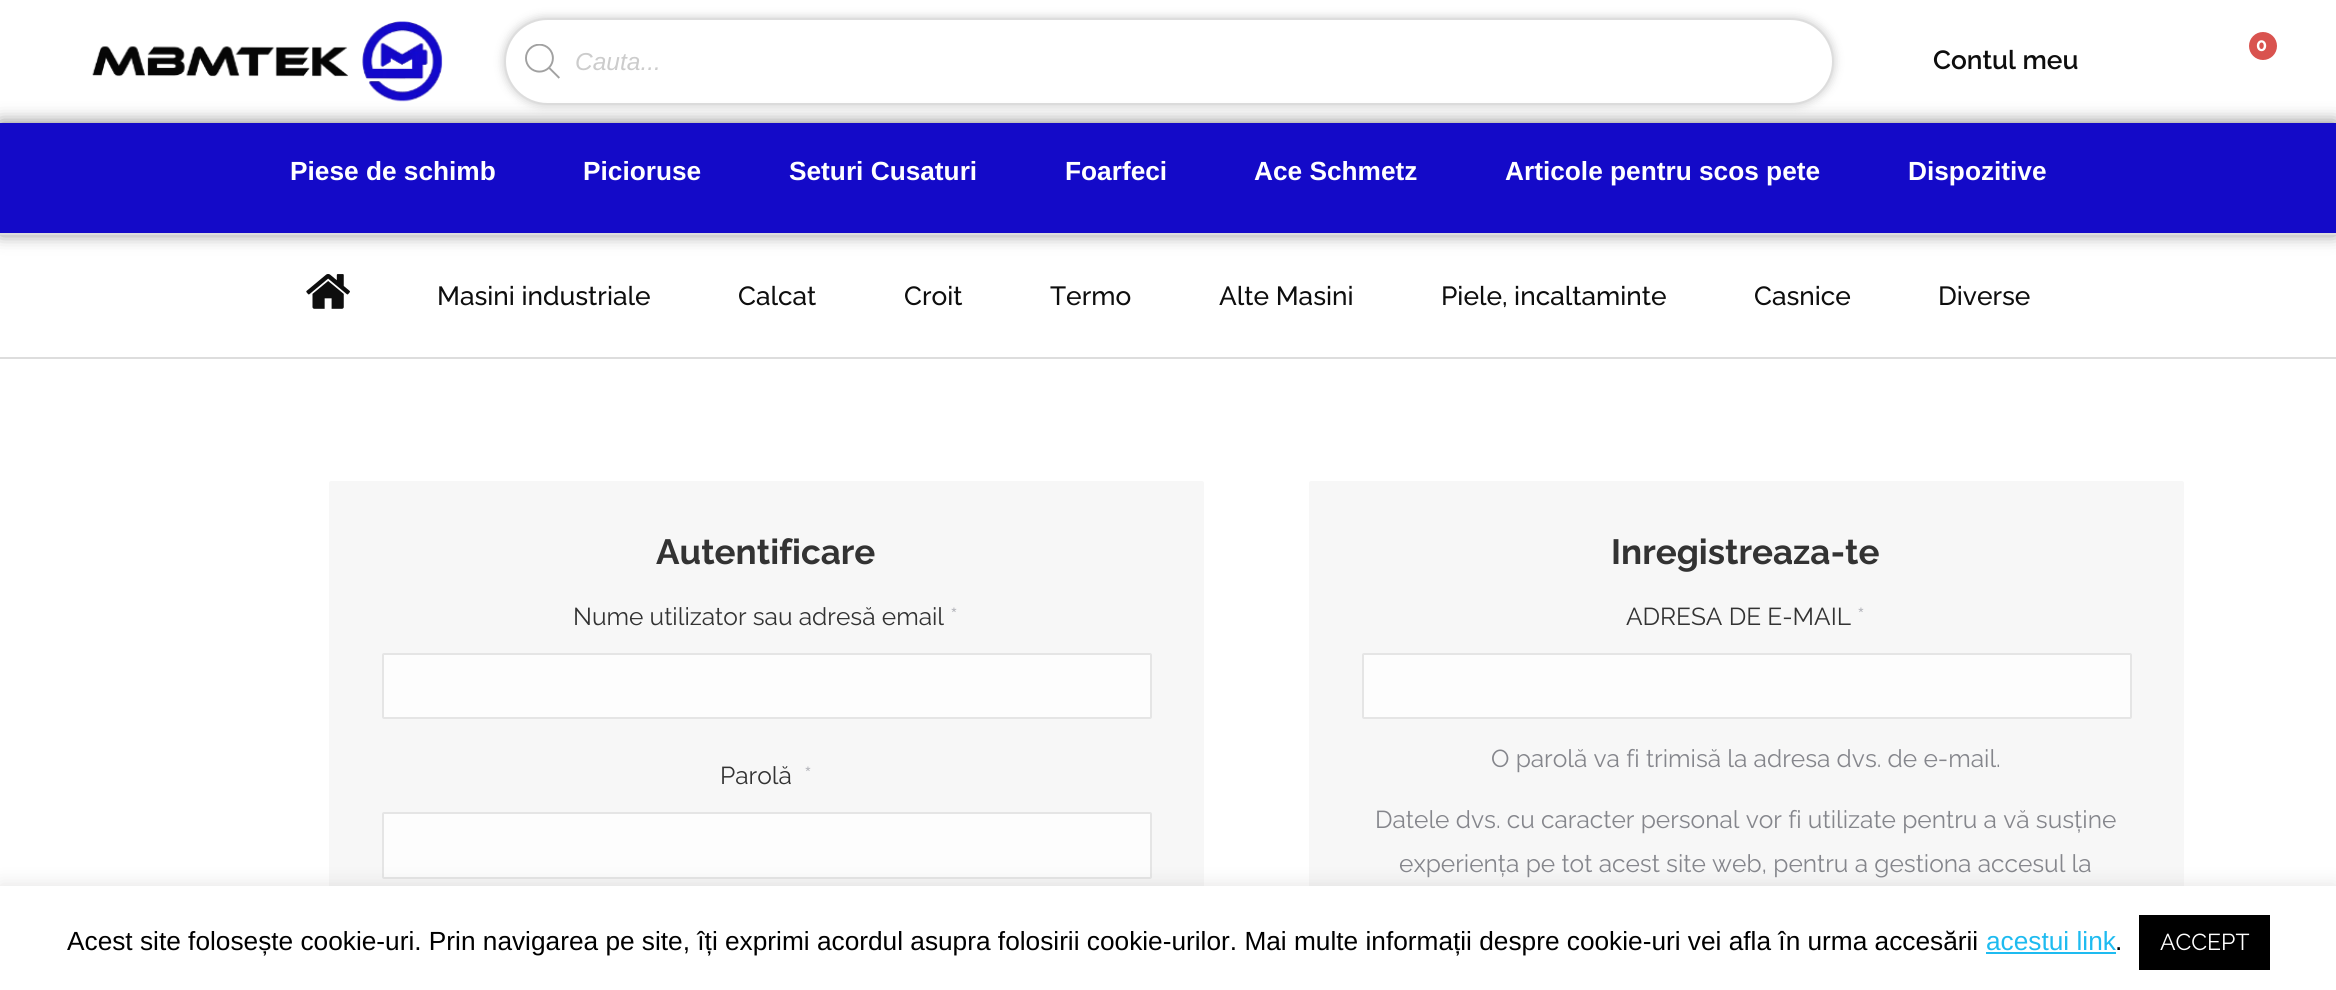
import math
import cairo

surface = cairo.ImageSurface(cairo.FORMAT_RGB24, 2336, 990)
cr = cairo.Context(surface)
options = cairo.FontOptions()
options.set_hint_metrics(cairo.HINT_METRICS_OFF)
options.set_hint_style(cairo.HINT_STYLE_NONE)
cr.set_font_options(options)
cr.set_miter_limit(4)


def rgb(code):
    cr.set_source_rgb(*(v / 255 for v in bytes.fromhex(code[-6:])))


def rrect(x, y, w, h, r):
    cr.new_sub_path()
    for i, (u, v) in enumerate([(x + w - r, y + h - r), (x + r, y + h - r), (x + r, y + r), (x + w - r, y + r)]):
        cr.arc(u, v, r, i * math.pi / 2, (i + 1) * math.pi / 2)
    cr.close_path()


def soft_shadow(x, y, w, h, r, blur, alpha):
    cr.push_group_with_content(cairo.CONTENT_ALPHA)
    cr.set_operator(cairo.OPERATOR_SOURCE)
    for i in range(15, -16, -2):
        e = blur * i / 6
        if min(w, h) + 2 * e > 0:
            cr.set_source_rgba(0, 0, 0, alpha * math.erfc((i - 1) / 8.5) / 2)
            rrect(x - e, y - e, w + 2 * e, h + 2 * e, max(0, min(r + e + blur * .6, min(w, h) / 2 + e)))
            cr.fill()
    cr.mask(cr.pop_group())


def image(path, x, y, w, h):
    cr.save()
    cr.set_source_surface(cairo.ImageSurface.create_from_png(path), x, y)
    cr.rectangle(x, y, w, h)
    cr.fill()
    cr.restore()


rgb("#ffffff")
cr.paint()
image("img/1.png", 92, 21, 351, 81)
rgb("#d9534f")
cr.arc(2263, 46, 14, 0, 2 * math.pi)
cr.fill()
rgb("#000000")
soft_shadow(504, 18, 1330, 87, 43.5, 5, 0.21)
rgb("#ffffff")
rrect(505, 19, 1328, 85, 42.5)
cr.fill_preserve()
rgb("#dddddd")
cr.stroke()
image("img/2.png", 525, 44, 35, 35)
rgb("#000000")
soft_shadow(0, 123, 2336, 110, 0, 9, 0.5)
for x, y, w, h, color in [
    (0, 123, 2336, 110, "#140ac8"),
    (0, 233, 2336, 2, "#dddddd"),
    (0, 357, 2336, 2, "#dddddd"),
]:
    rgb(color)
    cr.rectangle(x, y, w, h)
    cr.fill()
image("img/3.png", 306, 274, 44, 35)
rgb("#f7f7f7")
rrect(329, 481, 875, 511, 2)
cr.fill()
rgb("#fdfdfd")
rrect(383, 654, 768, 64, 1)
cr.fill_preserve()
rgb("#e5e5e5")
cr.stroke()
rgb("#fdfdfd")
rrect(383, 813, 768, 65, 1)
cr.fill_preserve()
rgb("#e5e5e5")
cr.stroke()
rgb("#f7f7f7")
rrect(1309, 481, 875, 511, 2)
cr.fill()
rgb("#fdfdfd")
rrect(1363, 654, 768, 64, 1)
cr.fill_preserve()
rgb("#e5e5e5")
cr.stroke()
rgb("#acabab")
soft_shadow(0, 884, 2336, 105, 0, 9, 0.3)
for x, y, w, h, color in [
    (0, 886, 2336, 104, "#ffffff"),
    (1986, 952, 130, 2, "#1ebbf0"),
    (2139, 915, 131, 55, "#000000"),
]:
    rgb(color)
    cr.rectangle(x, y, w, h)
    cr.fill()
cr.select_font_face("Raleway", cairo.FONT_SLANT_NORMAL, cairo.FONT_WEIGHT_BOLD)
cr.set_font_size(18)
rgb("#ffffff")
cr.move_to(2256, 51)
cr.show_text("0")
cr.select_font_face("Liberation Sans", cairo.FONT_SLANT_ITALIC)
cr.set_font_size(24.5)
rgb("#cccccc")
cr.move_to(575, 70)
cr.show_text("Cauta...")
cr.select_font_face("Raleway SemiBold")
cr.set_font_size(26.25)
rgb("#0e0e0e")
cr.move_to(1933, 69)
cr.show_text("Contul meu")
cr.select_font_face("Liberation Sans", cairo.FONT_SLANT_NORMAL, cairo.FONT_WEIGHT_BOLD)
rgb("#ffffff")
for x, y, s in [
    (290, 180, "Piese de schimb"),
    (583, 180, "Picioruse"),
    (789, 180, "Seturi Cusaturi"),
    (1065, 180, "Foarfeci"),
    (1254, 180, "Ace Schmetz"),
    (1505, 180, "Articole pentru scos pete"),
    (1908, 180, "Dispozitive"),
]:
    cr.move_to(x, y)
    cr.show_text(s)
cr.select_font_face("Raleway Medium")
rgb("#0e0e0e")
for x, y, s in [
    (437, 305, "Masini industriale"),
    (738, 305, "Calcat"),
    (904, 305, "Croit"),
    (1050, 305, "Termo"),
    (1219, 305, "Alte Masini"),
    (1441, 305, "Piele, incaltaminte"),
    (1754, 305, "Casnice"),
    (1938, 305, "Diverse"),
]:
    cr.move_to(x, y)
    cr.show_text(s)
cr.select_font_face("Raleway", cairo.FONT_SLANT_NORMAL, cairo.FONT_WEIGHT_BOLD)
cr.set_font_size(35)
rgb("#333333")
cr.move_to(656, 564)
cr.show_text("Autentificare")
cr.select_font_face("Raleway")
cr.set_font_size(24.5)
cr.move_to(573, 625)
cr.show_text("Nume utilizator sau adresă email")
rgb("#b4b5bb")
cr.move_to(950, 625)
cr.show_text("*")
rgb("#333333")
cr.move_to(720, 784)
cr.show_text("Parolă")
rgb("#b4b5bb")
cr.move_to(804, 784)
cr.show_text("*")
cr.select_font_face("Raleway", cairo.FONT_SLANT_NORMAL, cairo.FONT_WEIGHT_BOLD)
cr.set_font_size(35)
rgb("#333333")
cr.move_to(1611, 564)
cr.show_text("Inregistreaza-te")
cr.select_font_face("Raleway")
cr.set_font_size(24.5)
cr.move_to(1626, 625)
cr.show_text("ADRESA DE E-MAIL")
rgb("#b4b5bb")
cr.move_to(1857, 625)
cr.show_text("*")
rgb("#85868c")
for x, y, s in [
    (1491, 767, "O parolă va fi trimisă la adresa dvs. de e-mail."),
    (1375, 828, "Datele dvs. cu caracter personal vor fi utilizate pentru a vă susține"),
    (1399, 872, "experiența pe tot acest site web, pentru a gestiona accesul la"),
]:
    cr.move_to(x, y)
    cr.show_text(s)
cr.select_font_face("Liberation Sans")
cr.set_font_size(26.25)
rgb("#000000")
cr.move_to(67, 950)
cr.show_text("Acest site folosește cookie-uri. Prin navigarea pe site, îți exprimi acordul asupra folosirii cookie-urilor. Mai multe informații despre cookie-uri vei afla în urma accesării")
rgb("#1ebbf0")
cr.move_to(1986, 950)
cr.show_text("acestui link")
rgb("#000000")
cr.move_to(2115, 950)
cr.show_text(".")
cr.select_font_face("Raleway")
cr.set_font_size(23)
rgb("#ffffff")
cr.move_to(2160, 950)
cr.show_text("ACCEPT")
surface.write_to_png("page.png")
